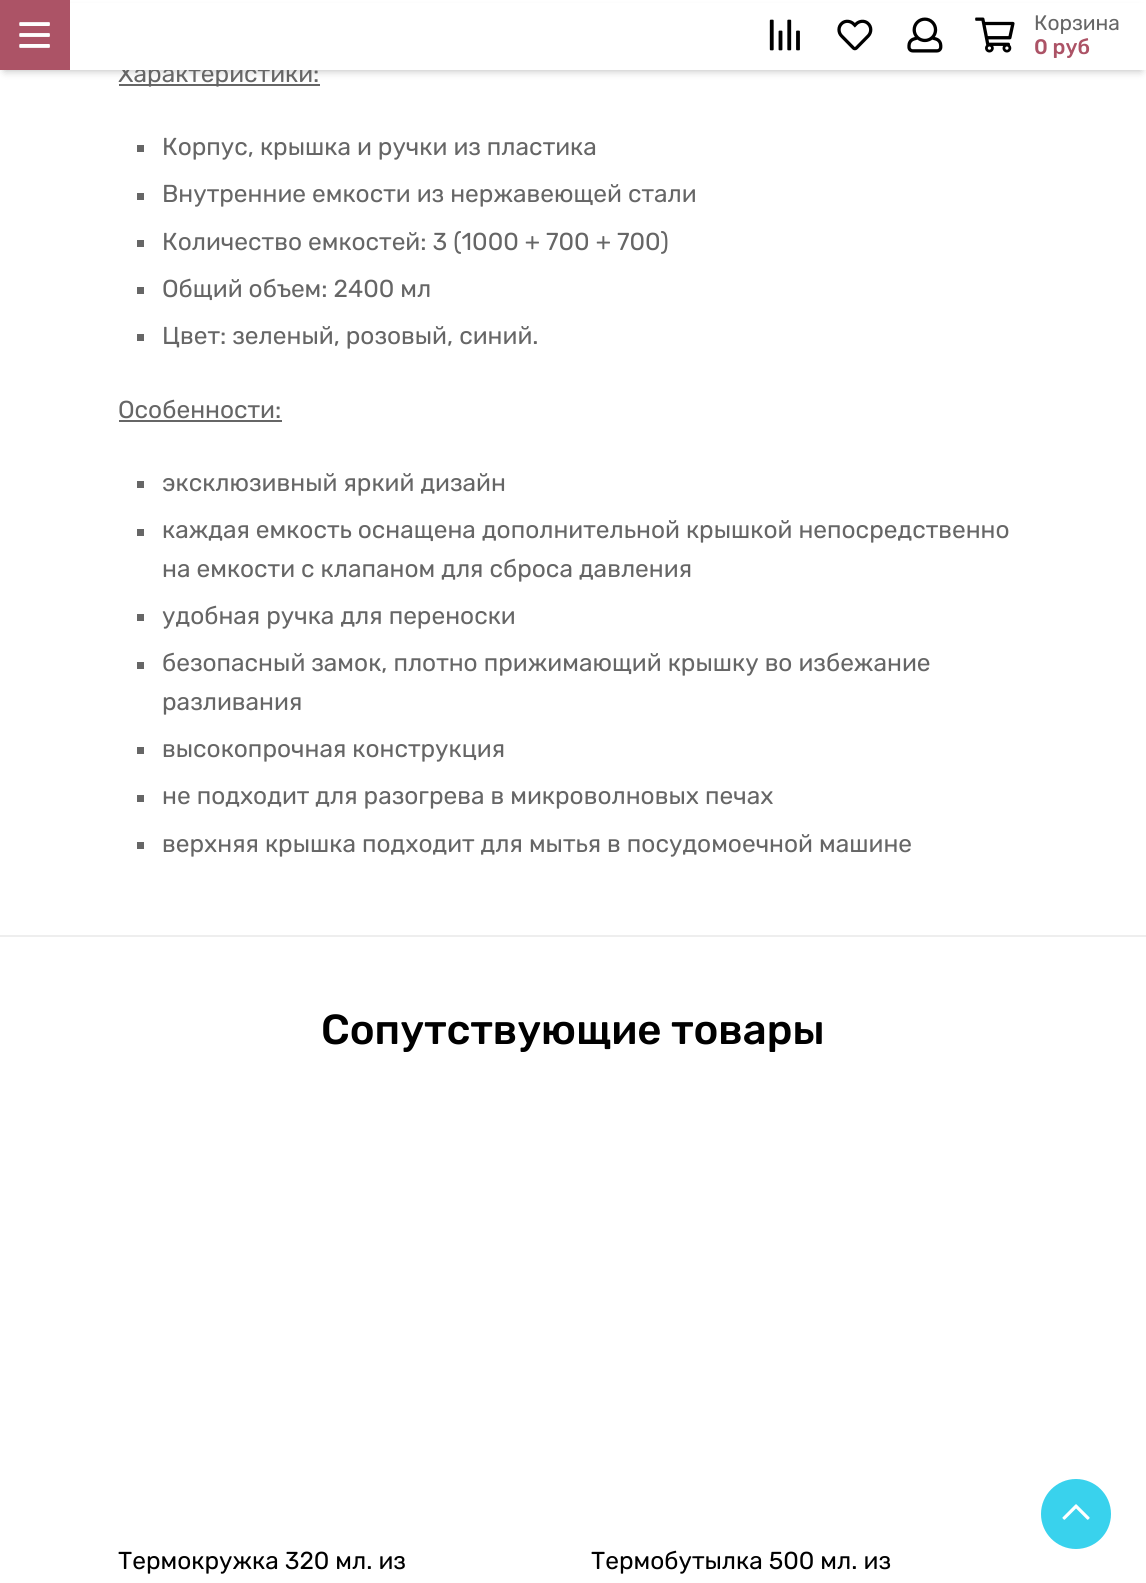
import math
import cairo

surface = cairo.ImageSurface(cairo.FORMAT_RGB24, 1146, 1583)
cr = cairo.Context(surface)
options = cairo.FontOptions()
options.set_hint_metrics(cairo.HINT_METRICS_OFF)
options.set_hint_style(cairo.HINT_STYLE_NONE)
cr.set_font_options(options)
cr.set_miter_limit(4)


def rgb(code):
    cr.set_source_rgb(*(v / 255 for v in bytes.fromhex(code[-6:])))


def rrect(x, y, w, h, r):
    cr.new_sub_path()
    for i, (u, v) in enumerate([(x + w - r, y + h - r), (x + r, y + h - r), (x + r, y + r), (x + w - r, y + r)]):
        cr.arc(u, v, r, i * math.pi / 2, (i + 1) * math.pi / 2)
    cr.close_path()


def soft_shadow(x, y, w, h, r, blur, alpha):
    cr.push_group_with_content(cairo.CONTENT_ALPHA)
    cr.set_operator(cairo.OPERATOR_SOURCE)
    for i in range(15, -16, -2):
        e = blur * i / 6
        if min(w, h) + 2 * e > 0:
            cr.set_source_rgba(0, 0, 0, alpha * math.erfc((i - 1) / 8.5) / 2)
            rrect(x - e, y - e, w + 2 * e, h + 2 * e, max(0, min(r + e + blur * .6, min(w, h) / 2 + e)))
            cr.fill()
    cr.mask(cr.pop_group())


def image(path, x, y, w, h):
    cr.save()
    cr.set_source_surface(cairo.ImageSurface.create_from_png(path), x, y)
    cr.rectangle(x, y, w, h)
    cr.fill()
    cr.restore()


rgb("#ffffff")
cr.paint()
rgb("#666666")
cr.rectangle(119, 84, 201, 2)
cr.fill()
rgb("#000000")
soft_shadow(5, 11, 1136, 59, 0, 4.5, 0.3)
rgb("#ac5366")
cr.rectangle(0, 0, 70, 70)
cr.fill()
image("img/1.png", 19, 22, 31, 26)
for x, y, w, h, color in [
    (137, 145, 7, 7, "#666666"),
    (137, 193, 7, 7, "#666666"),
    (137, 240, 7, 7, "#666666"),
    (137, 287, 7, 7, "#666666"),
    (137, 334, 7, 7, "#666666"),
    (119, 420, 163, 2, "#666666"),
    (137, 481, 7, 7, "#666666"),
    (137, 529, 7, 7, "#666666"),
    (137, 614, 7, 7, "#666666"),
    (137, 662, 7, 7, "#666666"),
    (137, 747, 7, 7, "#666666"),
    (137, 795, 7, 7, "#666666"),
    (137, 842, 7, 7, "#666666"),
    (0, 935, 1146, 2, "#eeeeee"),
]:
    rgb(color)
    cr.rectangle(x, y, w, h)
    cr.fill()
rgb("#39d2ed")
cr.arc(1076, 1514, 35, 0, 2 * math.pi)
cr.fill()
image("img/6.png", 1062, 1504, 28, 16)
cr.select_font_face("Rubik")
cr.set_font_size(24.5)
rgb("#666666")
cr.move_to(118, 82)
cr.show_text("Характеристики:")
rgb("#ffffff")
cr.rectangle(70, 3, 1076, 67)
cr.fill()
cr.select_font_face("Rubik Medium")
cr.set_font_size(21)
rgb("#ac5366")
cr.move_to(1034, 54)
cr.show_text("0 руб")
cr.select_font_face("Rubik")
rgb("#666666")
cr.move_to(1034, 30)
cr.show_text("Корзина")
image("img/5.png", 975, 17, 40, 36)
image("img/4.png", 907, 17, 36, 36)
image("img/3.png", 837, 19, 36, 32)
image("img/2.png", 769, 19, 31, 32)
cr.set_font_size(24.5)
for x, y, s in [
    (162, 155, "Корпус, крышка и ручки из пластика"),
    (162, 202, "Внутренние емкости из нержавеющей стали"),
    (162, 250, "Количество емкостей: 3 (1000 + 700 + 700)"),
    (162, 297, "Общий объем: 2400 мл"),
    (162, 344, "Цвет: зеленый, розовый, синий."),
    (118, 418, "Особенности:"),
    (162, 491, "эксклюзивный яркий дизайн"),
    (162, 538, "каждая емкость оснащена дополнительной крышкой непосредственно"),
    (162, 577, "на емкости с клапаном для сброса давления"),
    (162, 624, "удобная ручка для переноски"),
    (162, 671, "безопасный замок, плотно прижимающий крышку во избежание"),
    (162, 710, "разливания"),
    (162, 757, "высокопрочная конструкция"),
    (162, 804, "не подходит для разогрева в микроволновых печах"),
    (162, 852, "верхняя крышка подходит для мытья в посудомоечной машине"),
]:
    cr.move_to(x, y)
    cr.show_text(s)
cr.select_font_face("Rubik Medium")
cr.set_font_size(42)
rgb("#000000")
cr.move_to(321, 1044)
cr.show_text("Сопутствующие товары")
cr.select_font_face("Rubik")
cr.set_font_size(24.5)
cr.move_to(118, 1569)
cr.show_text("Термокружка 320 мл. из")
cr.move_to(591, 1569)
cr.show_text("Термобутылка 500 мл. из")
surface.write_to_png("page.png")
